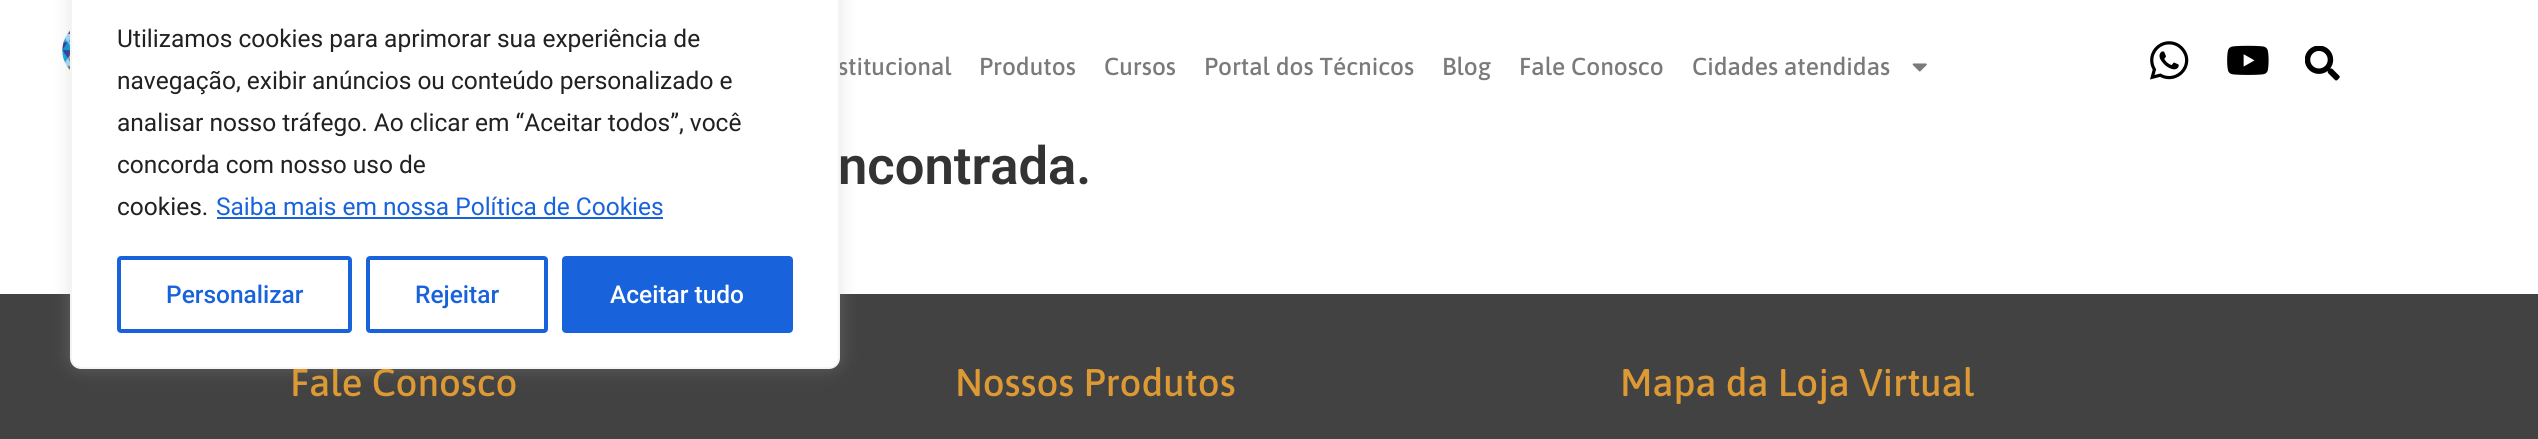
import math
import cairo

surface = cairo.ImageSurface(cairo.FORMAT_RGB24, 2538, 439)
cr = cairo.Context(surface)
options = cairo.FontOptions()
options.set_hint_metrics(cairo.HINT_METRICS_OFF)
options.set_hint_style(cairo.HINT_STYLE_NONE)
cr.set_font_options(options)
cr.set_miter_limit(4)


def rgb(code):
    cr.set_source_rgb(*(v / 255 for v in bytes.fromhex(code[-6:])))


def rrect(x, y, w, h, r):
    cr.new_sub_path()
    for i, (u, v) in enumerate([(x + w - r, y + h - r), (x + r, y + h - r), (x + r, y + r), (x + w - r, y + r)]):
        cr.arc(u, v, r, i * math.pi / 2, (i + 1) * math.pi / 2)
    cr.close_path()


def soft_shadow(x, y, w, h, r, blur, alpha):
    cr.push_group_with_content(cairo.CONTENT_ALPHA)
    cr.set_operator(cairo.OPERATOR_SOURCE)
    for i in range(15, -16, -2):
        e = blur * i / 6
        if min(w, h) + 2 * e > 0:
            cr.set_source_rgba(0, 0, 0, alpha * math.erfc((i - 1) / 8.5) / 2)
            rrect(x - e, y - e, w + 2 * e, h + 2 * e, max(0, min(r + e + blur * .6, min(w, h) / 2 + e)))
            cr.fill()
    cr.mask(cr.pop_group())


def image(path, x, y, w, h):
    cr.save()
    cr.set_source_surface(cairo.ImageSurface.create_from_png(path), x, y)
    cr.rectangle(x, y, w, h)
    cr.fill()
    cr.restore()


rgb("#ffffff")
cr.paint()
image("img/1.png", 62, 30, 8, 41)
rgb("#424242")
cr.rectangle(0, 294, 2538, 145)
cr.fill()
rgb("#acabab")
soft_shadow(70, -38, 770, 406, 11, 9, 0.3)
image("img/2.png", 1912, 63, 15, 9)
image("img/3.png", 2150, 41, 39, 39)
image("img/4.png", 2227, 45, 42, 30)
image("img/5.png", 2305, 46, 35, 35)
cr.select_font_face("Asap Medium")
cr.set_font_size(24.5)
rgb("#7a7a7a")
for x, y, s in [
    (838, 75, "stitucional"),
    (979, 75, "Produtos"),
    (1104, 75, "Cursos"),
    (1204, 75, "Portal dos Técnicos"),
    (1442, 75, "Blog"),
    (1519, 75, "Fale Conosco"),
    (1692, 75, "Cidades atendidas"),
]:
    cr.move_to(x, y)
    cr.show_text(s)
cr.select_font_face("Roboto SemiBold")
cr.set_font_size(52.5)
rgb("#333333")
cr.move_to(838, 184)
cr.show_text("ncontrada.")
cr.select_font_face("Asap Medium")
cr.set_font_size(38.5)
rgb("#dd9933")
cr.move_to(290, 396)
cr.show_text("Fale Conosco")
rgb("#ffffff")
rrect(71, -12, 768, 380, 10)
cr.fill_preserve()
rgb("#f4f4f4")
cr.stroke()
rgb("#1863dc")
rrect(564, 258, 227, 73, 2)
cr.fill_preserve()
cr.set_line_width(4)
cr.stroke()
cr.select_font_face("Roboto Medium")
cr.set_font_size(24.5)
rgb("#ffffff")
cr.move_to(610, 303)
cr.show_text("Aceitar tudo")
rrect(368, 258, 178, 73, 2)
rgb("#1863dc")
cr.stroke()
cr.move_to(415, 303)
cr.show_text("Rejeitar")
rrect(119, 258, 231, 73, 2)
cr.stroke()
cr.move_to(166, 303)
cr.show_text("Personalizar")
cr.select_font_face("Roboto")
cr.move_to(216, 215)
cr.show_text("Saiba mais em nossa Política de Cookies")
cr.rectangle(217, 217, 446, 2)
cr.fill()
rgb("#212121")
for x, y, s in [
    (117, 215, "cookies."),
    (117, 173, "concorda com nosso uso de"),
    (117, 131, "analisar nosso tráfego. Ao clicar em “Aceitar todos”, você"),
    (117, 89, "navegação, exibir anúncios ou conteúdo personalizado e"),
    (117, 47, "Utilizamos cookies para aprimorar sua experiência de"),
]:
    cr.move_to(x, y)
    cr.show_text(s)
cr.select_font_face("Asap Medium")
cr.set_font_size(38.5)
rgb("#dd9933")
cr.move_to(955, 396)
cr.show_text("Nossos Produtos")
cr.move_to(1620, 396)
cr.show_text("Mapa da Loja Virtual")
surface.write_to_png("page.png")
